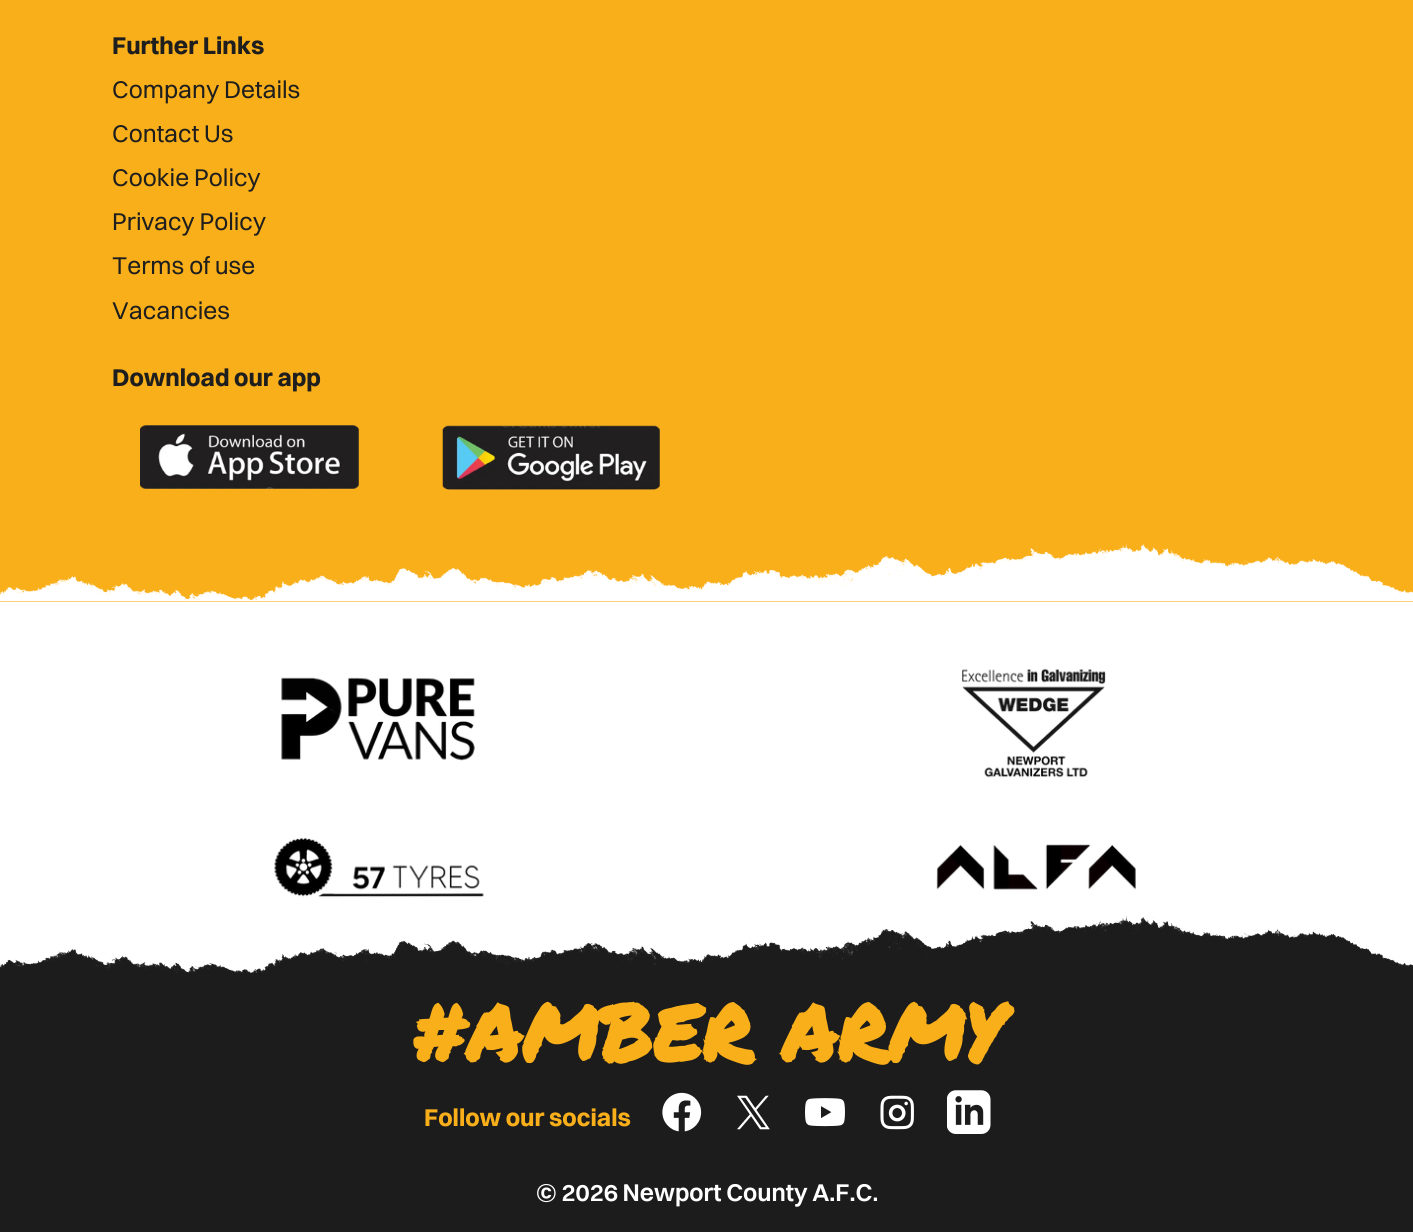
import math
import cairo

surface = cairo.ImageSurface(cairo.FORMAT_RGB24, 1413, 1232)
cr = cairo.Context(surface)
options = cairo.FontOptions()
options.set_hint_metrics(cairo.HINT_METRICS_OFF)
options.set_hint_style(cairo.HINT_STYLE_NONE)
cr.set_font_options(options)
cr.set_miter_limit(4)


def rgb(code):
    cr.set_source_rgb(*(v / 255 for v in bytes.fromhex(code[-6:])))


def image(path, x, y, w, h):
    cr.save()
    cr.set_source_surface(cairo.ImageSurface.create_from_png(path), x, y)
    cr.rectangle(x, y, w, h)
    cr.fill()
    cr.restore()


rgb("#ffffff")
cr.paint()
rgb("#f9af1a")
cr.rectangle(0, 0, 1413, 602)
cr.fill()
image("img/1.png", 140, 425, 219, 65)
image("img/2.png", 442, 425, 218, 65)
image("img/3.png", 0, 543, 1413, 59)
image("img/4.png", 281, 677, 194, 84)
image("img/5.png", 962, 668, 144, 110)
image("img/6.png", 274, 837, 210, 61)
image("img/7.png", 936, 844, 200, 46)
rgb("#1c1c1c")
cr.rectangle(0, 973, 1413, 259)
cr.fill()
image("img/8.png", 662, 1092, 40, 40)
image("img/9.png", 737, 1095, 33, 35)
image("img/10.png", 805, 1098, 40, 29)
image("img/11.png", 880, 1095, 34, 35)
image("img/12.png", 947, 1090, 44, 44)
image("img/13.png", 0, 916, 1413, 57)
cr.select_font_face("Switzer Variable", cairo.FONT_SLANT_NORMAL, cairo.FONT_WEIGHT_BOLD)
cr.set_font_size(24.5)
rgb("#1e1e1e")
cr.move_to(112, 54)
cr.show_text("Further Links")
cr.select_font_face("Switzer Variable")
for x, y, s in [
    (112, 98, "Company Details"),
    (112, 142, "Contact Us"),
    (112, 186, "Cookie Policy"),
    (112, 230, "Privacy Policy"),
    (112, 274, "Terms of use"),
    (112, 319, "Vacancies"),
]:
    cr.move_to(x, y)
    cr.show_text(s)
cr.select_font_face("Switzer Variable", cairo.FONT_SLANT_NORMAL, cairo.FONT_WEIGHT_BOLD)
cr.move_to(112, 386)
cr.show_text("Download our app")
cr.select_font_face("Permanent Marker", cairo.FONT_SLANT_NORMAL, cairo.FONT_WEIGHT_BOLD)
cr.set_font_size(78.75)
rgb("#f9af1a")
cr.move_to(411, 1062)
cr.show_text("#AMBER ARMY")
cr.select_font_face("Switzer Variable", cairo.FONT_SLANT_NORMAL, cairo.FONT_WEIGHT_BOLD)
cr.set_font_size(24.5)
cr.move_to(424, 1126)
cr.show_text("Follow our socials")
cr.select_font_face("Switzer Variable SemiBold")
rgb("#ffffff")
cr.move_to(536, 1201)
cr.show_text("© 2026 Newport County A.F.C.")
surface.write_to_png("page.png")
